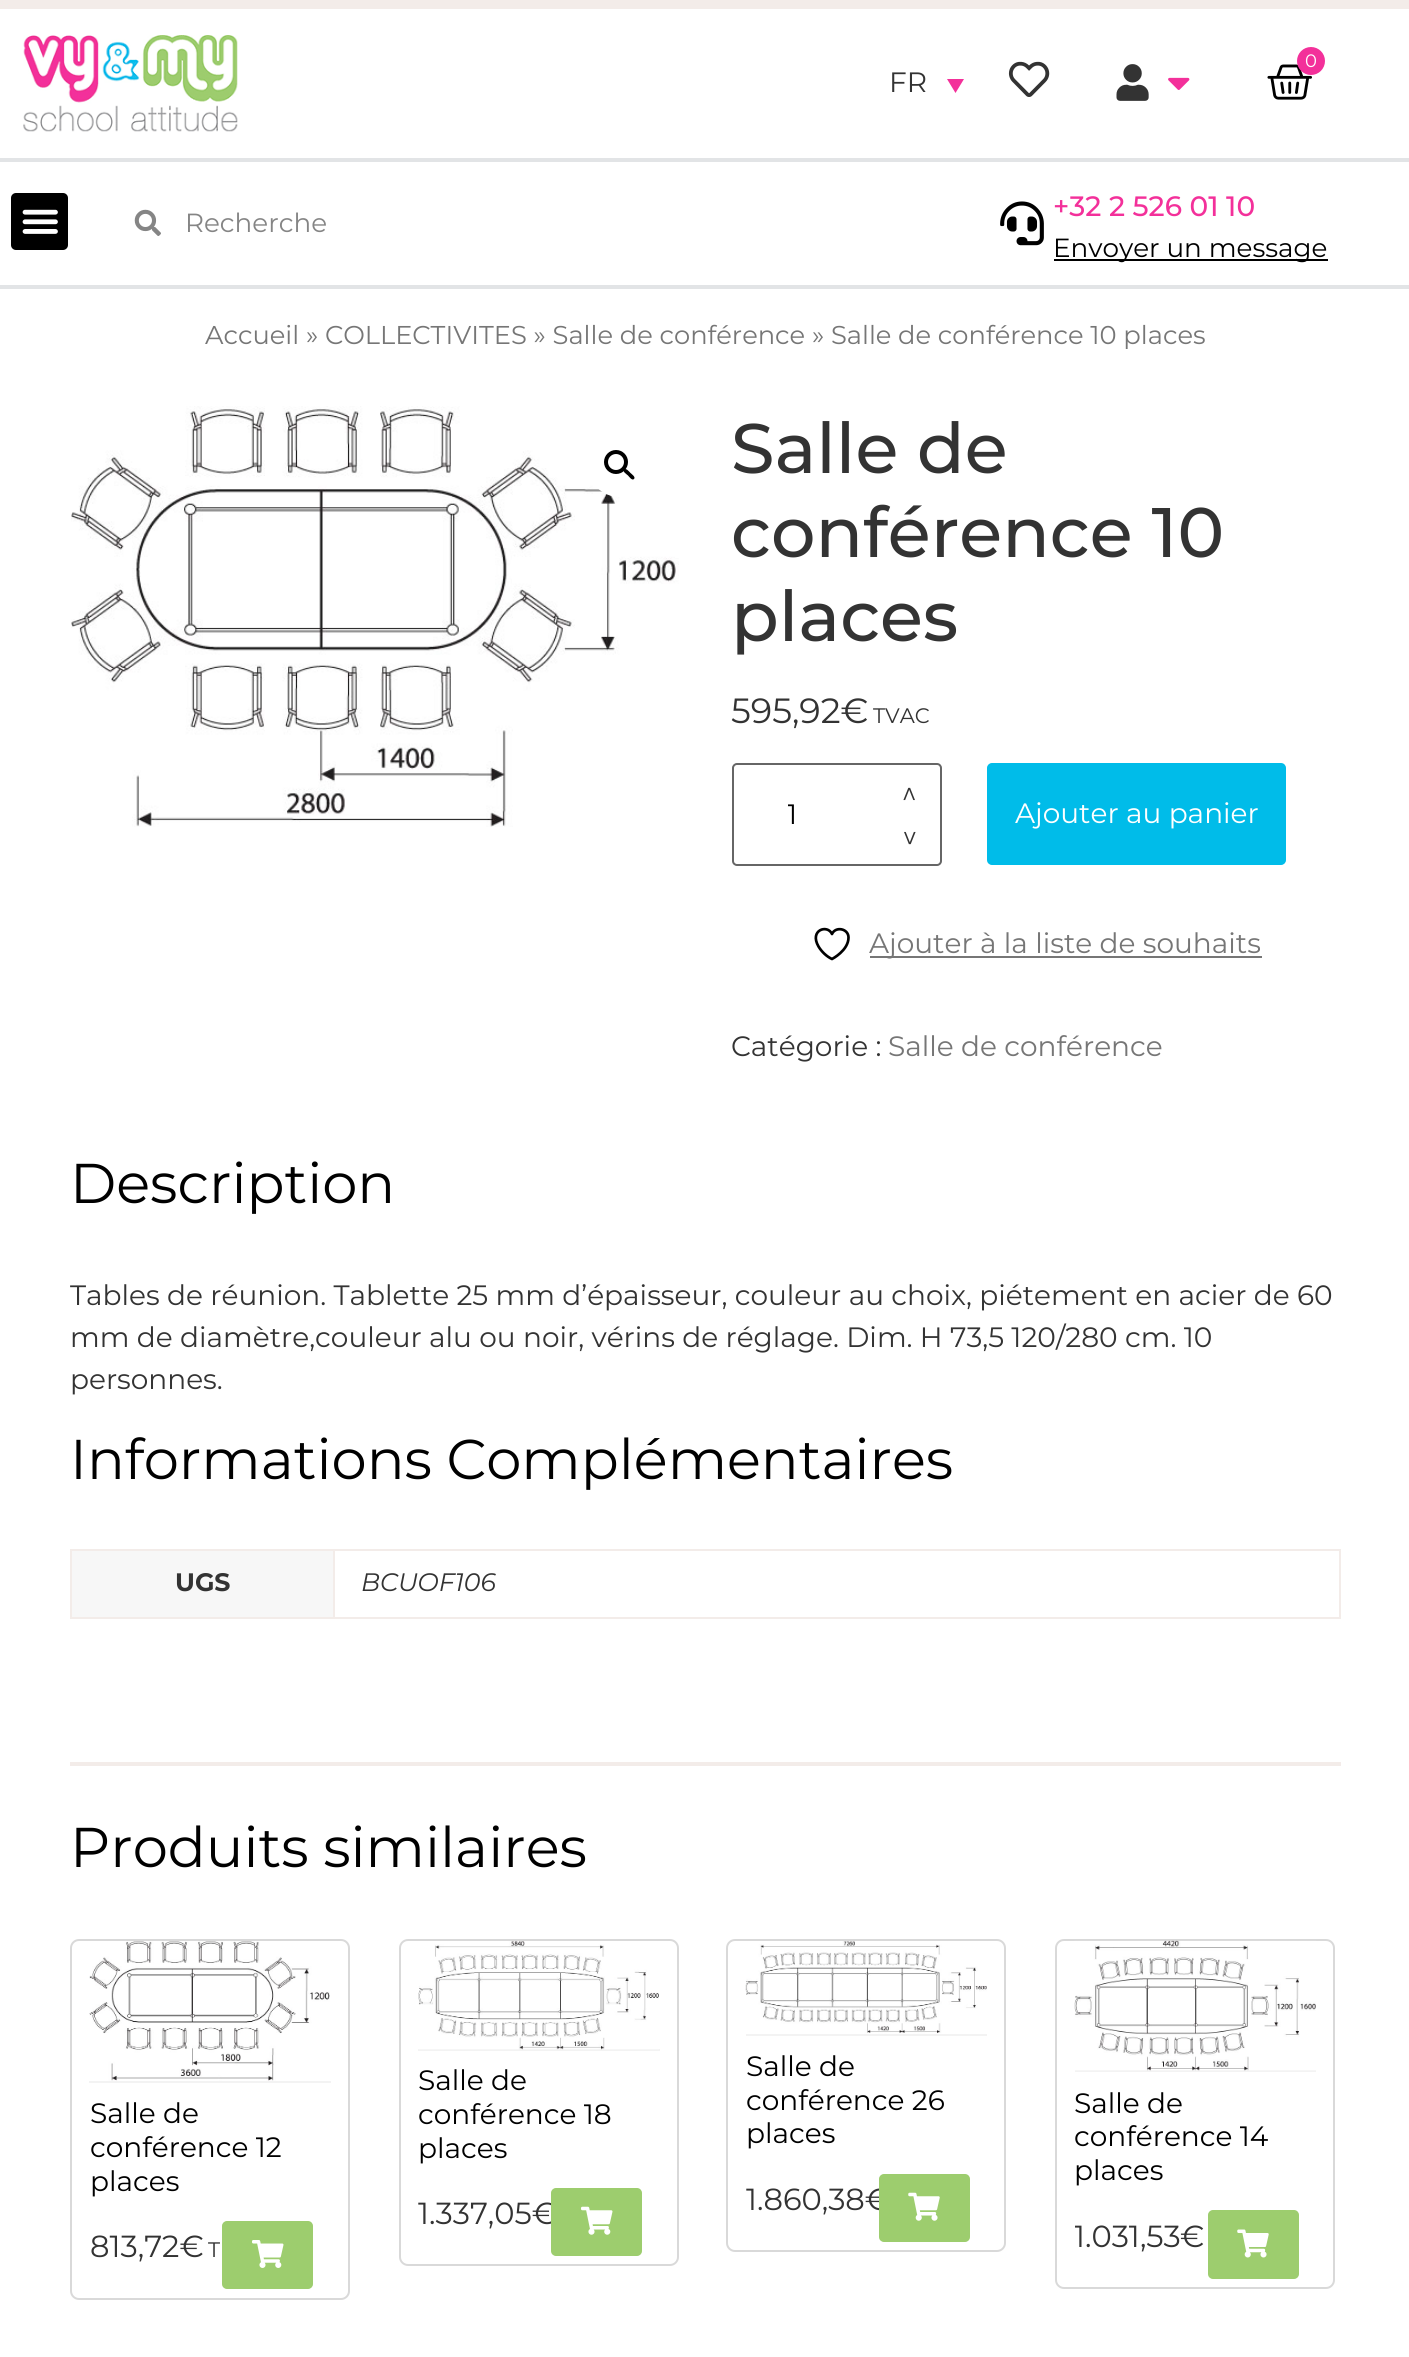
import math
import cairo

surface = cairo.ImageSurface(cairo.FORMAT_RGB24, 1409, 2357)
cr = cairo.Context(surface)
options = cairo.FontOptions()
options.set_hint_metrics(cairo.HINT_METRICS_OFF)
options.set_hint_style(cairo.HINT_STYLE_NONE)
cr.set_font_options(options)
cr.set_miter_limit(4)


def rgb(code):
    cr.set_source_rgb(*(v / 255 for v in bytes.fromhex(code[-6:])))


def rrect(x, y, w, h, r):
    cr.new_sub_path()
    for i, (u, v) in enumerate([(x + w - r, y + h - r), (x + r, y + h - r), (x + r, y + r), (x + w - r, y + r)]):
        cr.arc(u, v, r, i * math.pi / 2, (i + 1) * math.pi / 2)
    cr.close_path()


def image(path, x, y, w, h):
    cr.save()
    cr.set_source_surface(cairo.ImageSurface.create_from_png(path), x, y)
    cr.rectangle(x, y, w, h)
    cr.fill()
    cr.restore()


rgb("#ffffff")
cr.paint()
rgb("#f3ece9")
cr.rectangle(0, 0, 1409, 9)
cr.fill()
image("img/1.png", 23, 35, 215, 97)
rgb("#f3309a")
cr.new_path()
cr.move_to(947, 79)
cr.line_to(964, 79)
cr.line_to(955.5, 93)
cr.close_path()
cr.fill()
image("img/2.png", 1008, 61, 42, 36)
image("img/3.png", 1116, 64, 33, 37)
image("img/4.png", 1168, 77, 22, 13)
image("img/5.png", 1267, 64, 45, 36)
cr.arc(1311, 61, 14, 0, 2 * math.pi)
cr.fill()
rgb("#e2e4e6")
cr.rectangle(0, 158, 1409, 4)
cr.fill()
cr.rectangle(0, 285, 1409, 4)
cr.fill()
rgb("#000000")
rrect(11, 193, 57, 57, 5)
cr.fill()
image("img/6.png", 22, 209, 36, 25)
image("img/7.png", 134, 209, 27, 27)
image("img/8.png", 1000, 201, 44, 45)
cr.rectangle(1054, 259, 274, 2)
cr.fill()
image("img/9.png", 71, 406, 608, 421)
rgb("#ffffff")
cr.arc(619.5, 465.5, 31.5, 0, 2 * math.pi)
cr.fill()
cr.arc(616, 462, 10, 0, 2 * math.pi)
rgb("#000000")
cr.set_line_width(4)
cr.stroke()
cr.new_path()
cr.move_to(624, 469.5)
cr.curve_to(626, 467.5, 629.5, 472, 630.5, 473)
cr.curve_to(631.5, 474, 636, 477, 634, 479)
cr.curve_to(632, 481, 629, 476.5, 628, 475.5)
cr.curve_to(627, 474.5, 622, 471.5, 624, 469.5)
cr.close_path()
cr.fill()
rrect(733, 764, 208, 101, 4)
rgb("#666666")
cr.set_line_width(2)
cr.stroke()
rgb("#00bce9")
rrect(988, 764, 297, 100, 4)
cr.fill_preserve()
cr.stroke()
cr.new_path()
cr.move_to(848.5, 937.5)
cr.curve_to(848.5, 928.5, 835.5, 926, 832, 934)
cr.curve_to(827.5, 924, 809, 930, 818.5, 946.5)
cr.curve_to(821.5, 951.5, 826.5, 956.5, 832, 959)
cr.curve_to(832, 959, 848.5, 950.5, 848.5, 937.5)
cr.close_path()
rgb("#000000")
cr.set_line_width(2.7)
cr.set_line_cap(cairo.LINE_CAP_ROUND)
cr.set_line_join(cairo.LINE_JOIN_ROUND)
cr.stroke()
for x, y, w, h, color in [
    (870, 956, 392, 2, "#767676"),
    (70, 1549, 1271, 2, "#f3ece9"),
    (72, 1551, 261, 66, "#f7f7f7"),
    (1339, 1549, 2, 70, "#f3ece9"),
    (333, 1617, 1008, 2, "#f3ece9"),
    (333, 1549, 2, 70, "#f3ece9"),
    (70, 1617, 264, 2, "#f3ece9"),
    (70, 1549, 2, 70, "#f3ece9"),
    (70, 1762, 1271, 4, "#f3ece9"),
]:
    rgb(color)
    cr.rectangle(x, y, w, h)
    cr.fill()
rrect(71, 1940, 278, 359, 8)
rgb("#d9d9d9")
cr.set_line_width(2)
cr.set_line_cap(cairo.LINE_CAP_BUTT)
cr.set_line_join(cairo.LINE_JOIN_MITER)
cr.stroke()
image("img/10.png", 89, 1941, 241, 140)
rgb("#f3f3f3")
cr.rectangle(89, 2081, 242, 2)
cr.fill()
rgb("#9dcd6e")
rrect(223, 2222, 89, 66, 4)
cr.fill_preserve()
cr.stroke()
image("img/11.png", 252, 2240, 32, 28)
rrect(400, 1940, 278, 325, 8)
rgb("#d9d9d9")
cr.stroke()
rgb("#f3f3f3")
cr.rectangle(418, 2049, 242, 2)
cr.fill()
image("img/12.png", 418, 1941, 241, 109)
rrect(727, 1940, 278, 311, 8)
rgb("#d9d9d9")
cr.stroke()
image("img/14.png", 745, 1941, 242, 93)
rgb("#f3f3f3")
cr.rectangle(746, 2034, 241, 2)
cr.fill()
rrect(1056, 1940, 278, 348, 8)
rgb("#d9d9d9")
cr.stroke()
rgb("#f3f3f3")
cr.rectangle(1075, 2070, 241, 2)
cr.fill()
image("img/16.png", 1074, 1940, 242, 131)
rgb("#9dcd6e")
rrect(1209, 2211, 89, 67, 4)
cr.fill_preserve()
cr.stroke()
image("img/17.png", 1237, 2229, 32, 29)
cr.select_font_face("Montserrat")
cr.set_font_size(28)
rgb("#333333")
cr.move_to(889, 92)
cr.show_text("FR")
cr.set_font_size(18)
rgb("#ffffff")
cr.move_to(1305, 67)
cr.show_text("0")
cr.set_font_size(26.25)
rgb("#858585")
cr.move_to(185, 232)
cr.show_text("Recherche")
cr.select_font_face("Montserrat Medium")
cr.set_font_size(28)
rgb("#f3309a")
cr.move_to(1053, 216)
cr.show_text("+32 2 526 01 10")
cr.select_font_face("Montserrat")
cr.set_font_size(26.25)
rgb("#000000")
cr.move_to(1053, 257)
cr.show_text("Envoyer un message")
cr.set_font_size(25.75)
rgb("#767676")
cr.move_to(205, 344)
cr.show_text("Accueil » COLLECTIVITES » Salle de conférence » Salle de conférence 10 places")
cr.select_font_face("Montserrat Medium")
cr.set_font_size(70)
rgb("#333333")
for x, y, s in [
    (731, 473, "Salle de"),
    (731, 557, "conférence 10"),
    (731, 641, "places"),
]:
    cr.move_to(x, y)
    cr.show_text(s)
cr.select_font_face("Montserrat")
cr.set_font_size(35)
cr.move_to(731, 723)
cr.show_text("595,92€")
cr.set_font_size(21)
cr.move_to(873, 723)
cr.show_text("TVAC")
cr.set_font_size(28)
cr.save()
cr.translate(919, 802)
cr.rotate(-90 * math.pi / 180)
cr.move_to(0, 0)
cr.show_text(">")
cr.restore()
cr.save()
cr.rectangle(788, 798, 108, 33)
cr.clip()
rgb("#000000")
cr.move_to(787, 824)
cr.show_text("1")
cr.restore()
cr.save()
cr.translate(900, 830)
cr.rotate(90 * math.pi / 180)
cr.move_to(0, 0)
cr.show_text(">")
cr.restore()
rgb("#ffffff")
cr.move_to(1015, 823)
cr.show_text("Ajouter au panier")
rgb("#767676")
cr.move_to(869, 953)
cr.show_text("Ajouter à la liste de souhaits")
rgb("#333333")
cr.move_to(731, 1056)
cr.show_text("Catégorie :")
rgb("#767676")
cr.move_to(888, 1056)
cr.show_text("Salle de conférence")
cr.set_font_size(56)
rgb("#000000")
cr.move_to(70, 1203)
cr.show_text("Description")
cr.set_font_size(28)
rgb("#333333")
for x, y, s in [
    (70, 1305, "Tables de réunion. Tablette 25 mm d’épaisseur, couleur au choix, piétement en acier de 60"),
    (70, 1347, "mm de diamètre,couleur alu ou noir, vérins de réglage. Dim. H 73,5 120/280 cm. 10"),
    (70, 1389, "personnes."),
]:
    cr.move_to(x, y)
    cr.show_text(s)
cr.set_font_size(56)
rgb("#000000")
cr.move_to(70, 1479)
cr.show_text("Informations Complémentaires")
cr.select_font_face("Montserrat", cairo.FONT_SLANT_NORMAL, cairo.FONT_WEIGHT_BOLD)
cr.set_font_size(25.25)
rgb("#333333")
cr.move_to(175, 1591)
cr.show_text("UGS")
cr.select_font_face("Montserrat", cairo.FONT_SLANT_ITALIC)
cr.move_to(361, 1591)
cr.show_text("BCUOF106")
cr.select_font_face("Montserrat")
cr.set_font_size(56)
rgb("#000000")
cr.move_to(70, 1867)
cr.show_text("Produits similaires")
cr.set_font_size(28)
for x, y, s in [
    (90, 2123, "Salle de"),
    (90, 2157, "conférence 12"),
    (90, 2191, "places"),
]:
    cr.move_to(x, y)
    cr.show_text(s)
cr.set_font_size(30.5)
rgb("#333333")
cr.move_to(90, 2257)
cr.show_text("813,72€")
cr.set_font_size(21)
cr.move_to(208, 2257)
cr.show_text("T")
cr.set_font_size(28)
rgb("#000000")
for x, y, s in [
    (418, 2090, "Salle de"),
    (418, 2124, "conférence 18"),
    (418, 2158, "places"),
]:
    cr.move_to(x, y)
    cr.show_text(s)
cr.set_font_size(30.5)
rgb("#333333")
cr.move_to(418, 2224)
cr.show_text("1.337,05€")
rgb("#9dcd6e")
rrect(552, 2189, 89, 66, 4)
cr.fill_preserve()
cr.stroke()
image("img/13.png", 581, 2206, 32, 29)
cr.set_font_size(28)
rgb("#000000")
for x, y, s in [
    (746, 2076, "Salle de"),
    (746, 2110, "conférence 26"),
    (746, 2143, "places"),
]:
    cr.move_to(x, y)
    cr.show_text(s)
cr.set_font_size(30.5)
rgb("#333333")
cr.move_to(746, 2210)
cr.show_text("1.860,38€")
rgb("#9dcd6e")
rrect(880, 2175, 89, 66, 4)
cr.fill_preserve()
cr.stroke()
image("img/15.png", 908, 2192, 32, 29)
cr.set_font_size(28)
rgb("#000000")
for x, y, s in [
    (1074, 2113, "Salle de"),
    (1074, 2146, "conférence 14"),
    (1074, 2180, "places"),
]:
    cr.move_to(x, y)
    cr.show_text(s)
cr.save()
cr.rectangle(1075, 2202, 241, 85)
cr.clip()
cr.set_font_size(30.5)
rgb("#333333")
cr.move_to(1074, 2247)
cr.show_text("1.031,53")
cr.restore()
cr.set_font_size(30.5)
rgb("#333333")
cr.move_to(1180, 2247)
cr.show_text("€")
surface.write_to_png("page.png")
